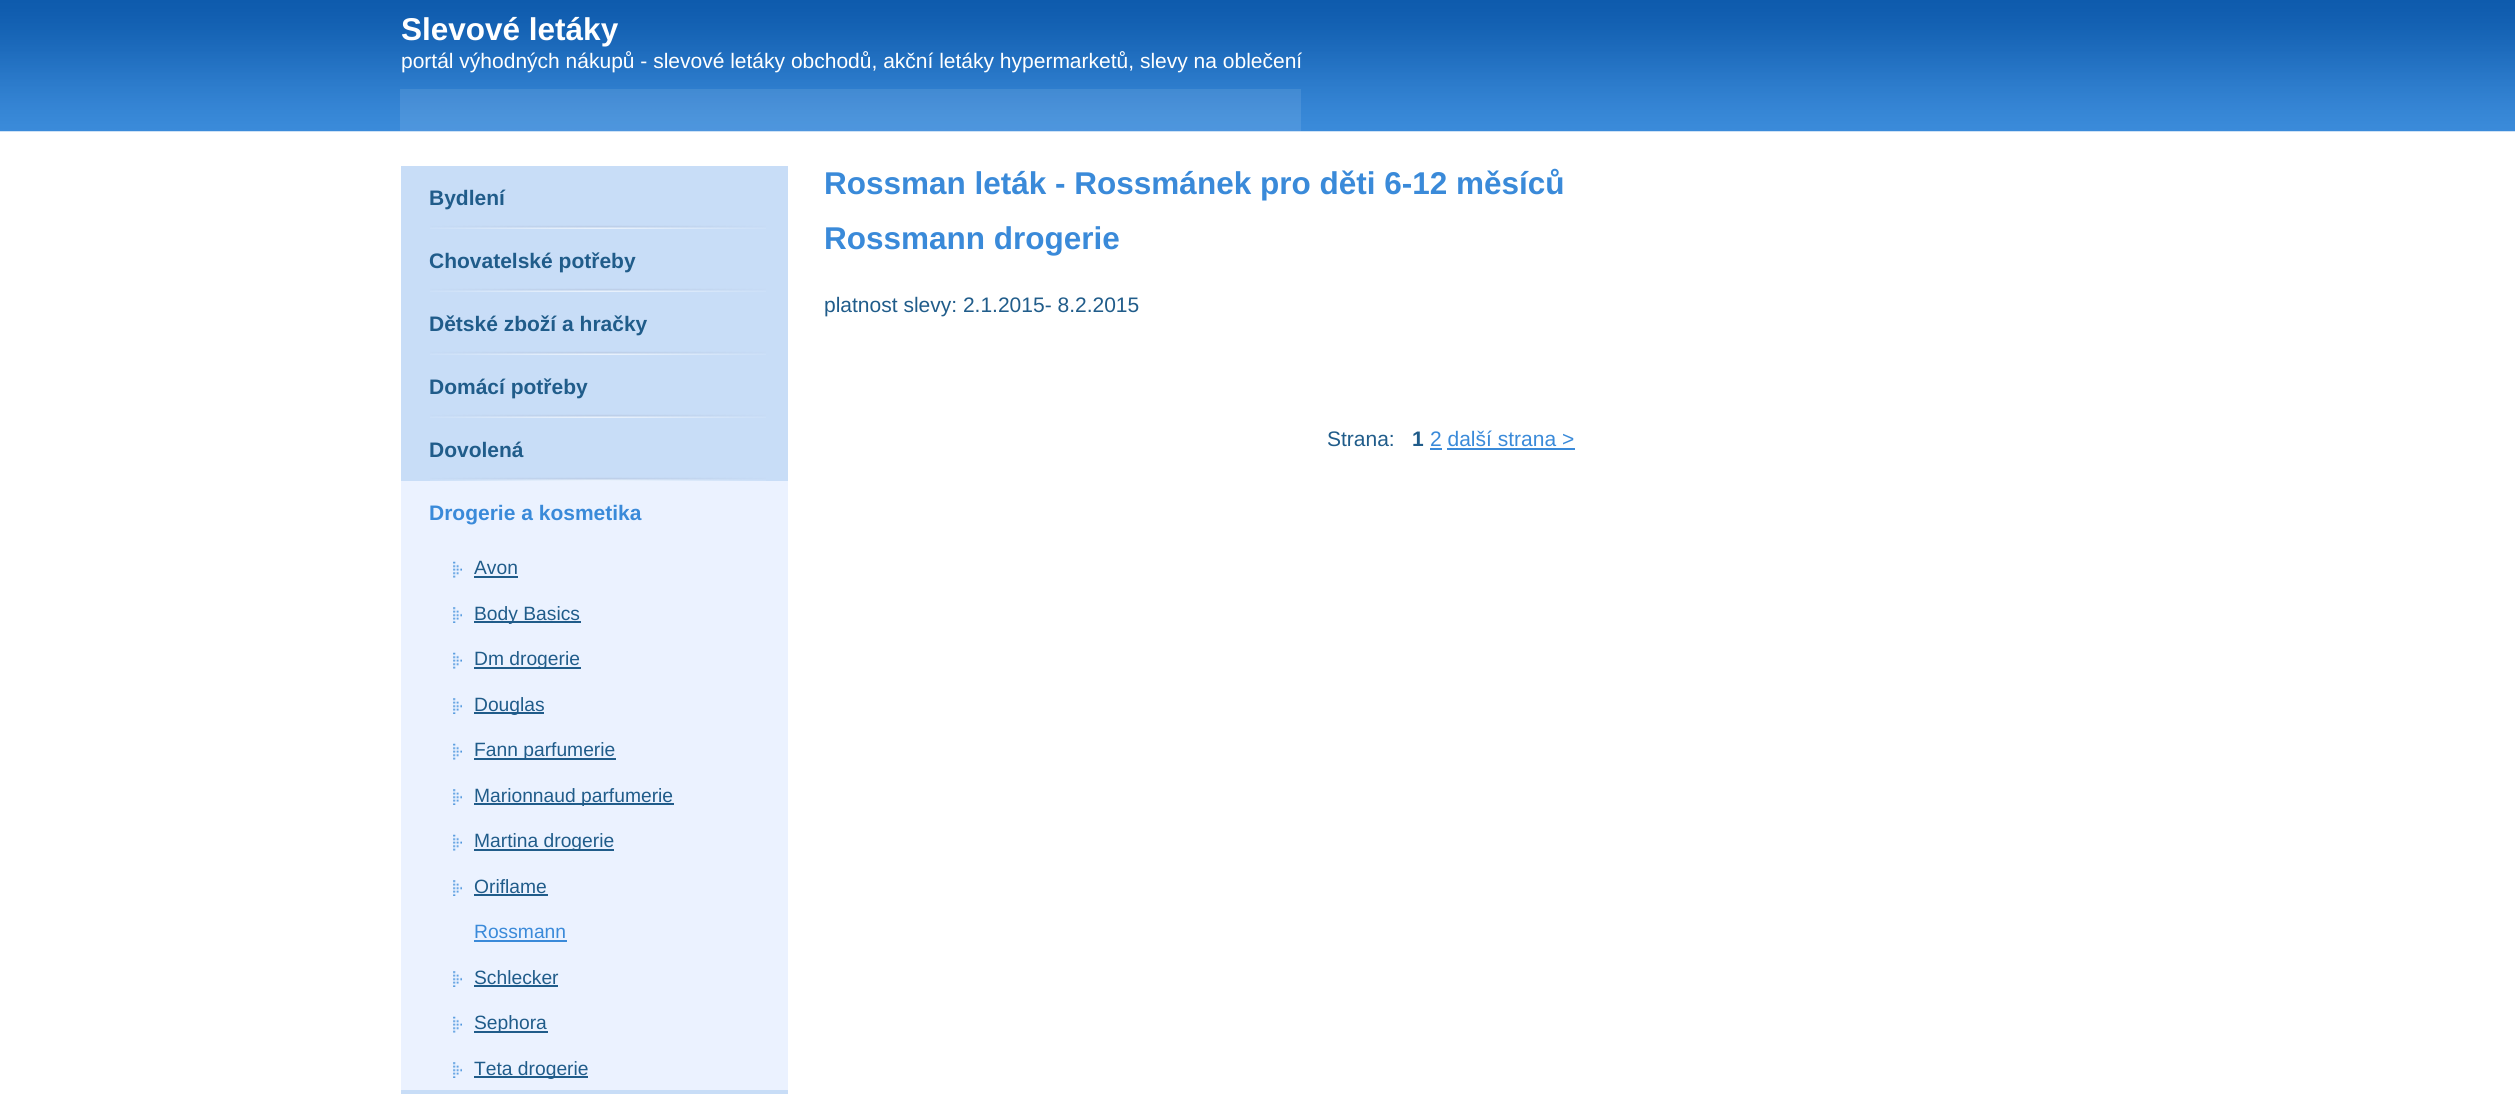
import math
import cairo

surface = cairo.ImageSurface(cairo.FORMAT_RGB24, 2515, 1094)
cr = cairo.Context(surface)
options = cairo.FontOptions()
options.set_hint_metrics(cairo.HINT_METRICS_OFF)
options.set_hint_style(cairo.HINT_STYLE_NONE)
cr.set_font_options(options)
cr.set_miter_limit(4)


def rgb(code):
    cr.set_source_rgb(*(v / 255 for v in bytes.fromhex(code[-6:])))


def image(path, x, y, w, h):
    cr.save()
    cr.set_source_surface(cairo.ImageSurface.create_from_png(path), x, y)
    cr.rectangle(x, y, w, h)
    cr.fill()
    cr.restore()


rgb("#ffffff")
cr.paint()
image("img/1.png", 0, 0, 2515, 132)
cr.set_source_rgba(1, 1, 1, 0.1)
cr.rectangle(400, 89, 901, 42)
cr.fill()
rgb("#ebf2ff")
cr.rectangle(401, 481, 387, 609)
cr.fill()
rgb("#c8ddf7")
cr.rectangle(401, 166, 387, 315)
cr.fill()
image("img/2.png", 430, 225, 336, 4)
image("img/2.png", 430, 288, 336, 4)
image("img/2.png", 430, 351, 336, 4)
image("img/2.png", 430, 414, 336, 4)
image("img/2.png", 430, 477, 336, 4)
image("img/3.png", 453, 561, 9, 17)
rgb("#205c8a")
cr.rectangle(474, 576, 44, 2)
cr.fill()
image("img/4.png", 453, 607, 9, 16)
cr.rectangle(474, 621, 107, 2)
cr.fill()
image("img/3.png", 453, 652, 9, 17)
cr.rectangle(474, 667, 107, 2)
cr.fill()
image("img/4.png", 453, 698, 9, 16)
cr.rectangle(474, 712, 70, 2)
cr.fill()
image("img/3.png", 453, 743, 9, 17)
cr.rectangle(474, 758, 142, 2)
cr.fill()
image("img/4.png", 453, 789, 9, 16)
cr.rectangle(474, 803, 200, 2)
cr.fill()
image("img/3.png", 453, 834, 9, 17)
cr.rectangle(474, 849, 140, 2)
cr.fill()
image("img/4.png", 453, 880, 9, 16)
cr.rectangle(474, 894, 74, 2)
cr.fill()
rgb("#3a8ad9")
cr.rectangle(474, 940, 93, 2)
cr.fill()
image("img/4.png", 453, 971, 9, 16)
rgb("#205c8a")
cr.rectangle(474, 985, 84, 2)
cr.fill()
image("img/3.png", 453, 1016, 9, 17)
cr.rectangle(474, 1031, 74, 2)
cr.fill()
image("img/4.png", 453, 1062, 9, 16)
for x, y, w, h, color in [
    (474, 1076, 114, 2, "#205c8a"),
    (401, 1090, 387, 4, "#c8ddf7"),
    (1430, 448, 12, 2, "#3a8ad9"),
    (1447, 448, 128, 2, "#3a8ad9"),
]:
    rgb(color)
    cr.rectangle(x, y, w, h)
    cr.fill()
cr.select_font_face("Liberation Sans", cairo.FONT_SLANT_NORMAL, cairo.FONT_WEIGHT_BOLD)
cr.set_font_size(31.5)
rgb("#ffffff")
cr.move_to(401, 40)
cr.show_text("Slevové letáky")
cr.select_font_face("Liberation Sans")
cr.set_font_size(21)
cr.move_to(401, 68)
cr.show_text("portál výhodných nákupů - slevové letáky obchodů, akční letáky hypermarketů, slevy na oblečení")
cr.select_font_face("Liberation Sans", cairo.FONT_SLANT_NORMAL, cairo.FONT_WEIGHT_BOLD)
rgb("#205c8a")
for x, y, s in [
    (429, 205, "Bydlení"),
    (429, 268, "Chovatelské potřeby"),
    (429, 331, "Dětské zboží a hračky"),
    (429, 394, "Domácí potřeby"),
    (429, 457, "Dovolená"),
]:
    cr.move_to(x, y)
    cr.show_text(s)
rgb("#3a8ad9")
cr.move_to(429, 520)
cr.show_text("Drogerie a kosmetika")
cr.select_font_face("Liberation Sans")
cr.set_font_size(19.25)
rgb("#205c8a")
for x, y, s in [
    (474, 574, "Avon"),
    (474, 620, "Body Basics"),
    (474, 665, "Dm drogerie"),
    (474, 711, "Douglas"),
    (474, 756, "Fann parfumerie"),
    (474, 802, "Marionnaud parfumerie"),
    (474, 847, "Martina drogerie"),
    (474, 893, "Oriflame"),
]:
    cr.move_to(x, y)
    cr.show_text(s)
rgb("#3a8ad9")
cr.move_to(474, 938)
cr.show_text("Rossmann")
rgb("#205c8a")
for x, y, s in [
    (474, 984, "Schlecker"),
    (474, 1029, "Sephora"),
    (474, 1075, "Teta drogerie"),
]:
    cr.move_to(x, y)
    cr.show_text(s)
cr.select_font_face("Liberation Sans", cairo.FONT_SLANT_NORMAL, cairo.FONT_WEIGHT_BOLD)
cr.set_font_size(31.5)
rgb("#3a8ad9")
cr.move_to(824, 194)
cr.show_text("Rossman leták - Rossmánek pro děti 6-12 měsíců")
cr.move_to(824, 249)
cr.show_text("Rossmann drogerie")
cr.select_font_face("Liberation Sans")
cr.set_font_size(21)
rgb("#205c8a")
cr.move_to(824, 312)
cr.show_text("platnost slevy: 2.1.2015- 8.2.2015")
cr.move_to(1327, 446)
cr.show_text("Strana:")
cr.select_font_face("Liberation Sans", cairo.FONT_SLANT_NORMAL, cairo.FONT_WEIGHT_BOLD)
cr.move_to(1412, 446)
cr.show_text("1")
cr.select_font_face("Liberation Sans")
rgb("#3a8ad9")
cr.move_to(1430, 446)
cr.show_text("2 další strana >")
surface.write_to_png("page.png")
